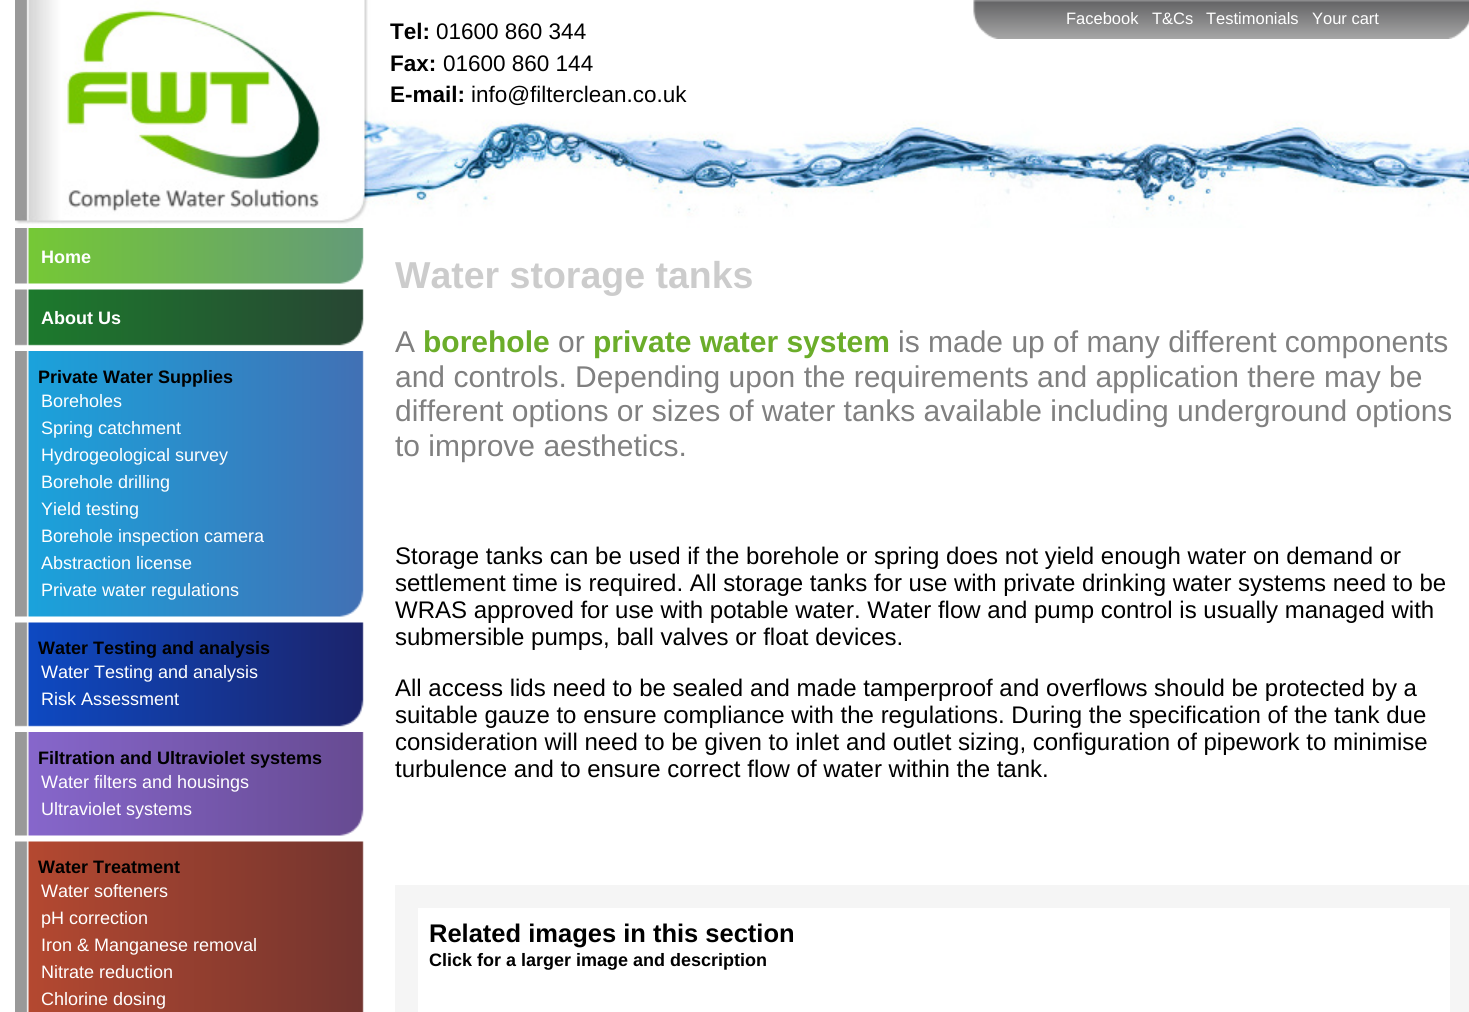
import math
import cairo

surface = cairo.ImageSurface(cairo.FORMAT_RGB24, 1469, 1012)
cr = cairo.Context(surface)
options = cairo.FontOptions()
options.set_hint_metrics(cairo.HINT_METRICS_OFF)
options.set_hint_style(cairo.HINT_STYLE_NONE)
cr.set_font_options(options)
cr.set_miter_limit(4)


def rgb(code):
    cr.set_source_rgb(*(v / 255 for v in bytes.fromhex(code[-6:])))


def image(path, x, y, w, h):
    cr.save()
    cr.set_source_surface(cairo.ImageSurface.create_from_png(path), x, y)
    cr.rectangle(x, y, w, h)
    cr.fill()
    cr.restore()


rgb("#ffffff")
cr.paint()
image("img/1.png", 15, 0, 1454, 228)
image("img/2.png", 973, 0, 496, 39)
image("img/3.png", 15, 228, 349, 56)
image("img/4.png", 15, 289, 349, 57)
image("img/5.png", 15, 351, 349, 266)
image("img/6.png", 15, 622, 349, 105)
image("img/7.png", 15, 732, 349, 104)
image("img/8.png", 15, 841, 349, 171)
cr.rectangle(406.5, 896.5, 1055, 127)
rgb("#f5f5f5")
cr.set_line_width(23)
cr.stroke()
cr.select_font_face("Liberation Sans")
cr.set_font_size(16.5)
rgb("#ffffff")
for x, y, s in [
    (1066, 24, "Facebook"),
    (1152, 24, "T&Cs"),
    (1206, 24, "Testimonials"),
    (1312, 24, "Your cart"),
]:
    cr.move_to(x, y)
    cr.show_text(s)
cr.select_font_face("Liberation Sans", cairo.FONT_SLANT_NORMAL, cairo.FONT_WEIGHT_BOLD)
cr.set_font_size(22.5)
rgb("#000000")
cr.move_to(390, 39)
cr.show_text("Tel:")
cr.select_font_face("Liberation Sans")
cr.move_to(436, 39)
cr.show_text("01600 860 344")
cr.select_font_face("Liberation Sans", cairo.FONT_SLANT_NORMAL, cairo.FONT_WEIGHT_BOLD)
cr.move_to(390, 71)
cr.show_text("Fax:")
cr.select_font_face("Liberation Sans")
cr.move_to(443, 71)
cr.show_text("01600 860 144")
cr.select_font_face("Liberation Sans", cairo.FONT_SLANT_NORMAL, cairo.FONT_WEIGHT_BOLD)
cr.move_to(390, 102)
cr.show_text("E-mail:")
cr.select_font_face("Liberation Sans")
cr.move_to(471, 102)
cr.show_text("info@filterclean.co.uk")
cr.select_font_face("Liberation Sans", cairo.FONT_SLANT_NORMAL, cairo.FONT_WEIGHT_BOLD)
cr.set_font_size(18)
rgb("#ffffff")
cr.move_to(41, 263)
cr.show_text("Home")
cr.move_to(41, 324)
cr.show_text("About Us")
rgb("#000000")
cr.move_to(38, 383)
cr.show_text("Private Water Supplies")
cr.select_font_face("Liberation Sans")
rgb("#ffffff")
for x, y, s in [
    (41, 407, "Boreholes"),
    (41, 434, "Spring catchment"),
    (41, 461, "Hydrogeological survey"),
    (41, 488, "Borehole drilling"),
    (41, 515, "Yield testing"),
    (41, 542, "Borehole inspection camera"),
    (41, 569, "Abstraction license"),
    (41, 596, "Private water regulations"),
]:
    cr.move_to(x, y)
    cr.show_text(s)
cr.select_font_face("Liberation Sans", cairo.FONT_SLANT_NORMAL, cairo.FONT_WEIGHT_BOLD)
rgb("#000000")
cr.move_to(38, 654)
cr.show_text("Water Testing and analysis")
cr.select_font_face("Liberation Sans")
rgb("#ffffff")
cr.move_to(41, 678)
cr.show_text("Water Testing and analysis")
cr.move_to(41, 705)
cr.show_text("Risk Assessment")
cr.select_font_face("Liberation Sans", cairo.FONT_SLANT_NORMAL, cairo.FONT_WEIGHT_BOLD)
rgb("#000000")
cr.move_to(38, 764)
cr.show_text("Filtration and Ultraviolet systems")
cr.select_font_face("Liberation Sans")
rgb("#ffffff")
cr.move_to(41, 788)
cr.show_text("Water filters and housings")
cr.move_to(41, 815)
cr.show_text("Ultraviolet systems")
cr.select_font_face("Liberation Sans", cairo.FONT_SLANT_NORMAL, cairo.FONT_WEIGHT_BOLD)
rgb("#000000")
cr.move_to(38, 873)
cr.show_text("Water Treatment")
cr.select_font_face("Liberation Sans")
rgb("#ffffff")
for x, y, s in [
    (41, 897, "Water softeners"),
    (41, 924, "pH correction"),
    (41, 951, "Iron & Manganese removal"),
    (41, 978, "Nitrate reduction"),
    (41, 1005, "Chlorine dosing"),
]:
    cr.move_to(x, y)
    cr.show_text(s)
cr.select_font_face("Liberation Sans", cairo.FONT_SLANT_NORMAL, cairo.FONT_WEIGHT_BOLD)
cr.set_font_size(37.5)
rgb("#cccccc")
cr.move_to(395, 288)
cr.show_text("Water storage tanks")
cr.select_font_face("Liberation Sans")
cr.set_font_size(30)
rgb("#808080")
cr.move_to(395, 352)
cr.show_text("A")
cr.select_font_face("Liberation Sans", cairo.FONT_SLANT_NORMAL, cairo.FONT_WEIGHT_BOLD)
rgb("#6bad2a")
cr.move_to(423, 352)
cr.show_text("borehole")
cr.select_font_face("Liberation Sans")
rgb("#808080")
cr.move_to(558, 352)
cr.show_text("or")
cr.select_font_face("Liberation Sans", cairo.FONT_SLANT_NORMAL, cairo.FONT_WEIGHT_BOLD)
rgb("#6bad2a")
cr.move_to(593, 352)
cr.show_text("private water system")
cr.select_font_face("Liberation Sans")
rgb("#808080")
for x, y, s in [
    (898, 352, "is made up of many different components"),
    (395, 387, "and controls. Depending upon the requirements and application there may be"),
    (395, 421, "different options or sizes of water tanks available including underground options"),
    (395, 456, "to improve aesthetics."),
]:
    cr.move_to(x, y)
    cr.show_text(s)
cr.set_font_size(24)
rgb("#000000")
for x, y, s in [
    (395, 564, "Storage tanks can be used if the borehole or spring does not yield enough water on demand or"),
    (395, 591, "settlement time is required. All storage tanks for use with private drinking water systems need to be"),
    (395, 618, "WRAS approved for use with potable water. Water flow and pump control is usually managed with"),
    (395, 645, "submersible pumps, ball valves or float devices."),
    (395, 696, "All access lids need to be sealed and made tamperproof and overflows should be protected by a"),
    (395, 723, "suitable gauze to ensure compliance with the regulations. During the specification of the tank due"),
    (395, 750, "consideration will need to be given to inlet and outlet sizing, configuration of pipework to minimise"),
    (395, 777, "turbulence and to ensure correct flow of water within the tank."),
]:
    cr.move_to(x, y)
    cr.show_text(s)
cr.select_font_face("Liberation Sans", cairo.FONT_SLANT_NORMAL, cairo.FONT_WEIGHT_BOLD)
cr.set_font_size(25.5)
cr.move_to(429, 942)
cr.show_text("Related images in this section")
cr.set_font_size(18)
cr.move_to(429, 966)
cr.show_text("Click for a larger image and description")
surface.write_to_png("page.png")
